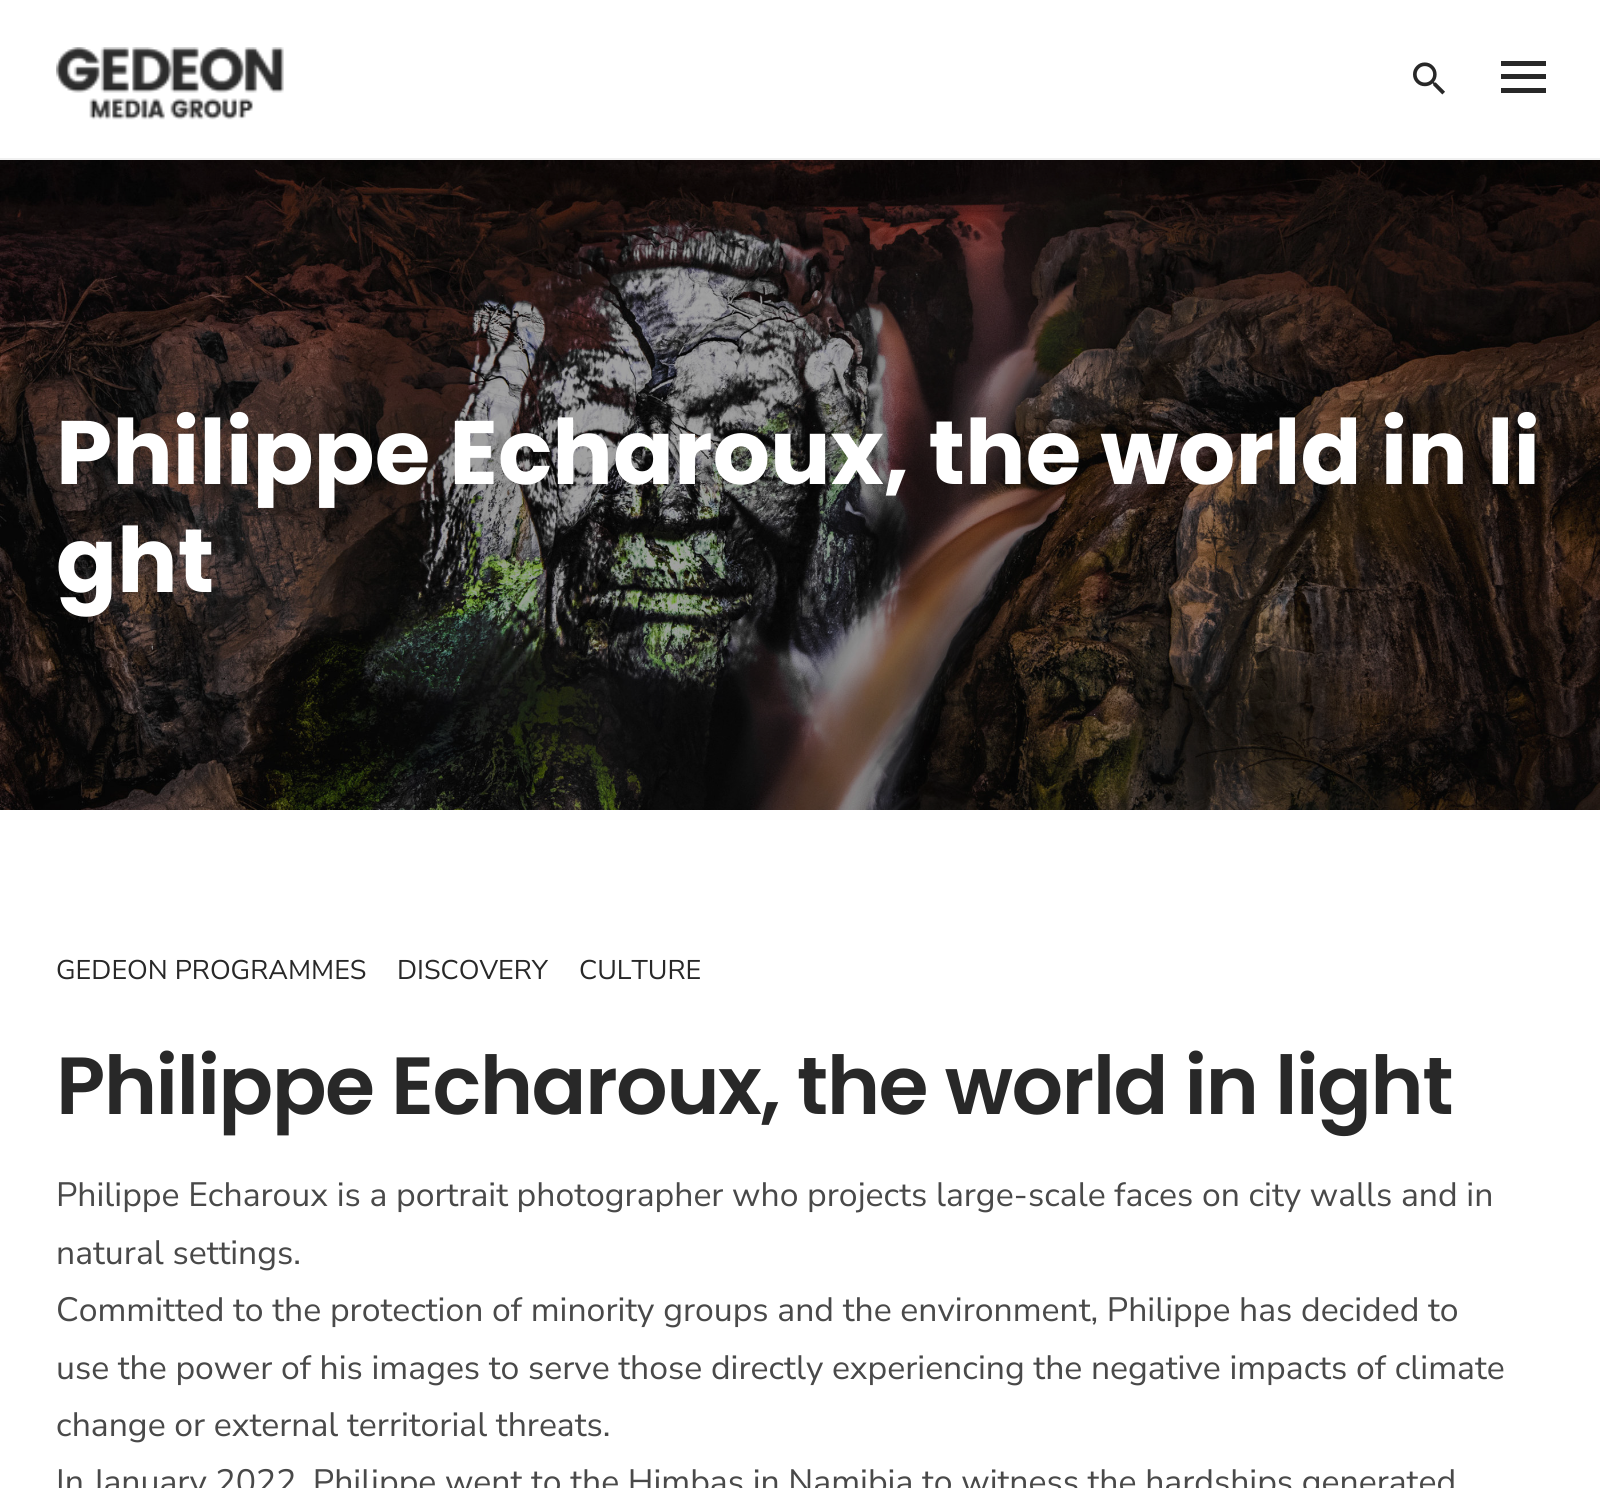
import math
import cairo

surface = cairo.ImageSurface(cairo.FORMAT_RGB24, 1600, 1488)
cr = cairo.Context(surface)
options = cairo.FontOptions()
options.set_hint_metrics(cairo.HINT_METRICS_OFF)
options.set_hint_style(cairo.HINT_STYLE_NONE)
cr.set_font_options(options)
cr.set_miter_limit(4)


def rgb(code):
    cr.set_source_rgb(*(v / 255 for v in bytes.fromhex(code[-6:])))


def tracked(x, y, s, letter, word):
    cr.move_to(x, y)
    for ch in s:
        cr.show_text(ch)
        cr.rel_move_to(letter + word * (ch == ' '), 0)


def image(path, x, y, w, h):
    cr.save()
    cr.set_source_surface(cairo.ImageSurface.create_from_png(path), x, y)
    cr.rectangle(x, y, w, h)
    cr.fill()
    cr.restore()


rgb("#ffffff")
cr.paint()
rgb("#f0f0f0")
cr.rectangle(0, 158, 1600, 2)
cr.fill()
image("img/1.png", 56, 47, 228, 73)
image("img/2.png", 1413, 62, 32, 33)
for x, y, w, h, color in [
    (1501, 61, 45, 5, "#282828"),
    (1501, 88, 45, 5, "#282828"),
    (1501, 74, 45, 5, "#282828"),
]:
    rgb(color)
    cr.rectangle(x, y, w, h)
    cr.fill()
image("img/3.png", 0, 160, 1600, 650)
cr.select_font_face("Poppins", cairo.FONT_SLANT_NORMAL, cairo.FONT_WEIGHT_BOLD)
cr.set_font_size(90)
rgb("#ffffff")
cr.move_to(56, 484)
cr.show_text("Philippe Echaroux, the world in li")
cr.move_to(56, 592)
cr.show_text("ght")
cr.select_font_face("Nunito Sans")
cr.set_font_size(27)
rgb("#282828")
for x, y, s in [
    (56, 979, "GEDEON PROGRAMMES"),
    (397, 979, "DISCOVERY"),
    (579, 979, "CULTURE"),
]:
    cr.move_to(x, y)
    cr.show_text(s)
cr.select_font_face("Poppins SemiBold")
cr.set_font_size(81)
tracked(56, 1114, "Philippe Echaroux, the world in light", -1.6, 0)
cr.select_font_face("Nunito Sans")
cr.set_font_size(33.75)
rgb("#494949")
for x, y, s in [
    (56, 1206, "Philippe Echaroux is a portrait photographer who projects large-scale faces on city walls and in"),
    (56, 1264, "natural settings."),
    (56, 1321, "Committed to the protection of minority groups and the environment, Philippe has decided to"),
    (56, 1379, "use the power of his images to serve those directly experiencing the negative impacts of climate"),
    (56, 1436, "change or external territorial threats."),
    (56, 1493, "In January 2022, Philippe went to the Himbas in Namibia to witness the hardships generated"),
]:
    cr.move_to(x, y)
    cr.show_text(s)
surface.write_to_png("page.png")
